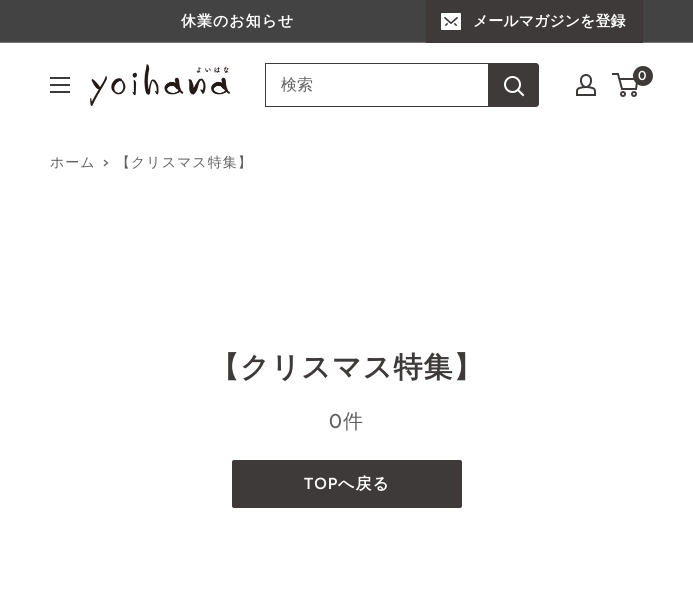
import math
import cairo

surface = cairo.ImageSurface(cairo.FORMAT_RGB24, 693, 605)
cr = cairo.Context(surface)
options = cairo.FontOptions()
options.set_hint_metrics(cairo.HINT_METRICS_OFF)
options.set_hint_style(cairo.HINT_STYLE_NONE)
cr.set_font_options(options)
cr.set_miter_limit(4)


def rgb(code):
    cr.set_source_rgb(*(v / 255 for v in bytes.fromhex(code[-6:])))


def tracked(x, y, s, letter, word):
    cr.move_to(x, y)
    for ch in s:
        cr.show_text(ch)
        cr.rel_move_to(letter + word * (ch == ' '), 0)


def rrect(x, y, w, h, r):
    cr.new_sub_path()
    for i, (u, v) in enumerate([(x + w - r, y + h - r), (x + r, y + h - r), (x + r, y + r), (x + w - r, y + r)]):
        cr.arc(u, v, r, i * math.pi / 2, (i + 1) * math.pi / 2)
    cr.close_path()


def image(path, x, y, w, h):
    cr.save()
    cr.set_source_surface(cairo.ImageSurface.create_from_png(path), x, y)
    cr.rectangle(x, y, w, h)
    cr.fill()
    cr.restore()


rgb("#ffffff")
cr.paint()
for x, y, w, h, color in [
    (0, 0, 693, 42, "#434343"),
    (0, 42, 693, 1, "#757575"),
    (426, 0, 217, 43, "#3e3a39"),
]:
    rgb(color)
    cr.rectangle(x, y, w, h)
    cr.fill()
image("img/1.png", 441, 13, 20, 17)
image("img/2.png", 50, 77, 20, 16)
image("img/3.png", 90, 64, 140, 42)
rgb("#f8f8f8")
cr.new_path()
cr.move_to(269, 64)
cr.line_to(538, 64)
cr.line_to(536, 63)
cr.line_to(268, 63)
cr.curve_to(267, 63, 266, 64, 265, 65)
cr.line_to(265, 104)
cr.line_to(266, 106)
cr.line_to(266, 73)
cr.curve_to(266, 71, 264, 64, 269, 64)
cr.close_path()
cr.fill()
cr.rectangle(265.5, 63.5, 223, 43)
rgb("#3e3a39")
cr.set_line_width(1)
cr.stroke()
cr.new_path()
cr.move_to(489, 63)
cr.line_to(536, 63)
cr.curve_to(537.5, 63, 539, 64.5, 539, 66)
cr.line_to(539, 104)
cr.curve_to(539, 105.5, 537.5, 107, 536, 107)
cr.line_to(489, 107)
cr.close_path()
cr.fill()
cr.new_path()
cr.move_to(523, 95)
cr.line_to(518, 90)
rgb("#ffffff")
cr.set_line_width(2)
cr.set_line_cap(cairo.LINE_CAP_SQUARE)
cr.stroke()
cr.arc(512.5, 84.5, 7.5, 0, 2 * math.pi)
cr.set_line_cap(cairo.LINE_CAP_BUTT)
cr.stroke()
image("img/4.png", 576, 74, 20, 22)
cr.arc(623, 94, 2, 0, 2 * math.pi)
rgb("#3e3a39")
cr.stroke()
cr.arc(634, 94, 2, 0, 2 * math.pi)
cr.stroke()
cr.new_path()
cr.move_to(619.5, 79)
cr.line_to(637.5, 79)
cr.line_to(636, 89)
cr.line_to(622, 89)
cr.line_to(618, 74)
cr.line_to(612, 74)
cr.stroke()
cr.arc(643, 76, 10, 0, 2 * math.pi)
cr.fill()
cr.new_path()
cr.move_to(104.5, 160.5)
cr.line_to(107.5, 163)
cr.line_to(104.5, 165.5)
rgb("#616161")
cr.set_line_width(1.3)
cr.set_line_cap(cairo.LINE_CAP_SQUARE)
cr.stroke()
rgb("#3e3a39")
rrect(232, 460, 230, 48, 2)
cr.fill()
cr.select_font_face("WenQuanYi Zen Hei", cairo.FONT_SLANT_NORMAL, cairo.FONT_WEIGHT_BOLD)
cr.set_font_size(15)
rgb("#ffffff")
tracked(181, 26, "休業のお知らせ", 1, 0)
cr.move_to(473, 26)
cr.show_text("メールマガジンを登録")
cr.select_font_face("WenQuanYi Zen Hei Medium")
cr.set_font_size(16)
rgb("#616161")
cr.move_to(281, 90)
cr.show_text("検索")
cr.select_font_face("Figtree SemiBold")
cr.set_font_size(13)
rgb("#ffffff")
tracked(638, 80, "0", 1, 0)
cr.select_font_face("WenQuanYi Zen Hei Medium")
cr.set_font_size(14)
rgb("#616161")
tracked(50, 167, "ホーム", 1, 0)
tracked(116, 167, "【クリスマス特集】", 1, 0)
cr.select_font_face("WenQuanYi Zen Hei", cairo.FONT_SLANT_NORMAL, cairo.FONT_WEIGHT_BOLD)
cr.set_font_size(29)
rgb("#3e3a39")
tracked(210, 377, "【クリスマス特集】", 1, 0)
cr.select_font_face("Figtree Medium")
cr.set_font_size(20)
rgb("#616161")
tracked(329, 428, "0", 1, 0)
cr.select_font_face("WenQuanYi Zen Hei Medium")
tracked(343, 428, "件", 1, 0)
cr.select_font_face("Figtree SemiBold")
cr.set_font_size(16)
rgb("#ffffff")
tracked(304, 489, "TOP", 1, 0)
cr.select_font_face("WenQuanYi Zen Hei", cairo.FONT_SLANT_NORMAL, cairo.FONT_WEIGHT_BOLD)
tracked(338, 489, "へ戻る", 1, 0)
surface.write_to_png("page.png")
